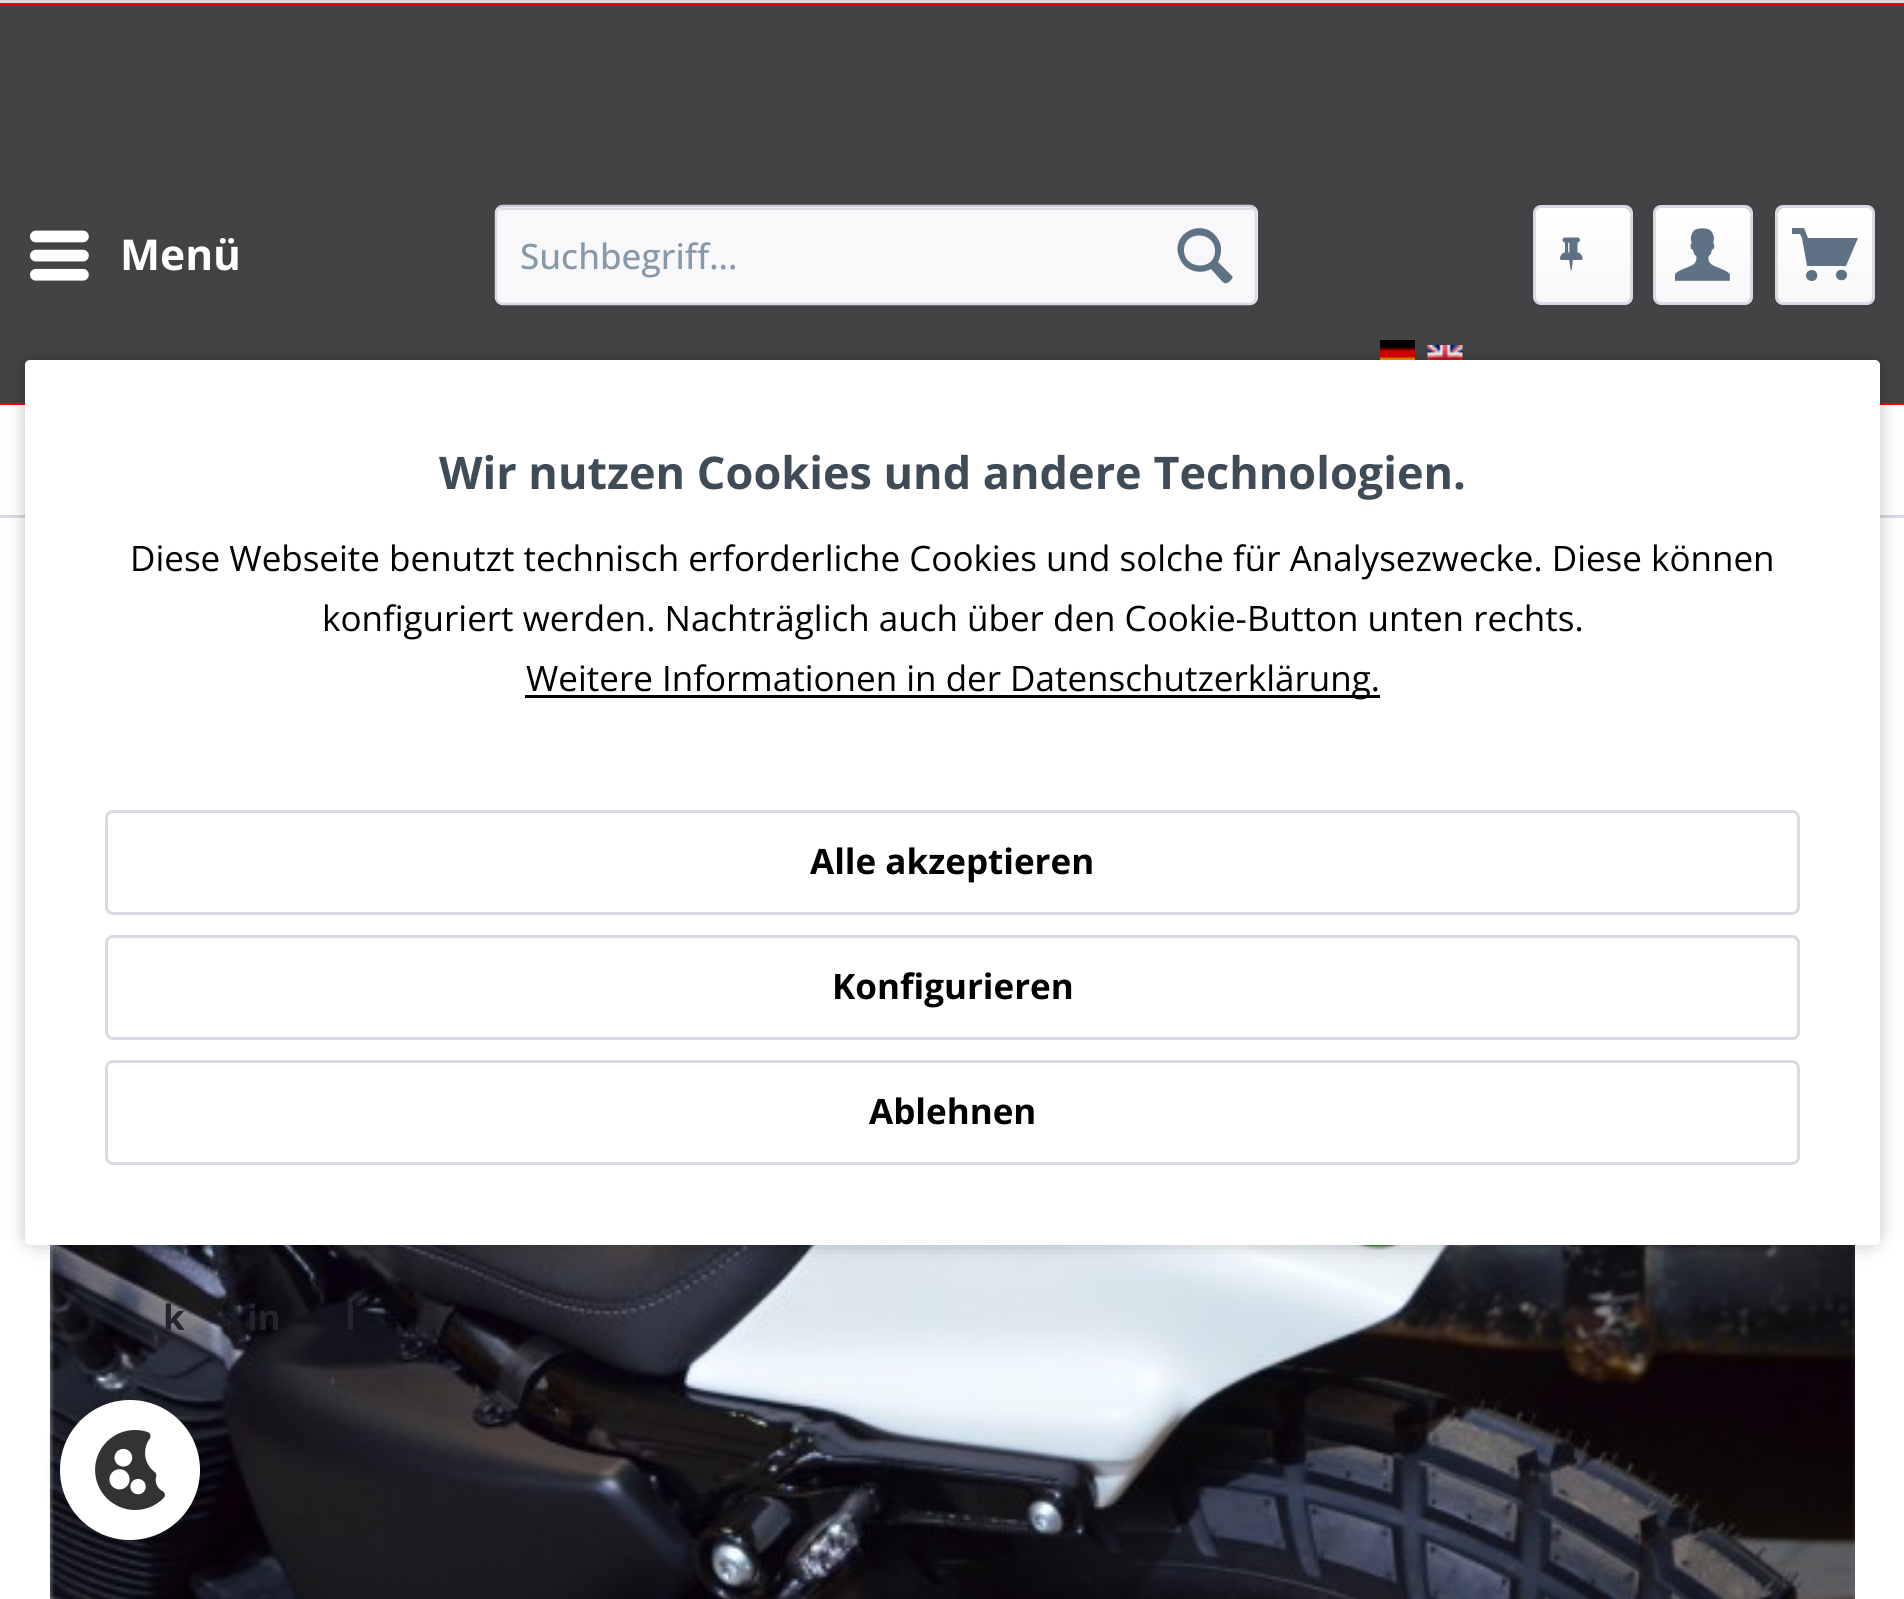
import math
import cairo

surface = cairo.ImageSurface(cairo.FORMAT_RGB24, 1904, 1599)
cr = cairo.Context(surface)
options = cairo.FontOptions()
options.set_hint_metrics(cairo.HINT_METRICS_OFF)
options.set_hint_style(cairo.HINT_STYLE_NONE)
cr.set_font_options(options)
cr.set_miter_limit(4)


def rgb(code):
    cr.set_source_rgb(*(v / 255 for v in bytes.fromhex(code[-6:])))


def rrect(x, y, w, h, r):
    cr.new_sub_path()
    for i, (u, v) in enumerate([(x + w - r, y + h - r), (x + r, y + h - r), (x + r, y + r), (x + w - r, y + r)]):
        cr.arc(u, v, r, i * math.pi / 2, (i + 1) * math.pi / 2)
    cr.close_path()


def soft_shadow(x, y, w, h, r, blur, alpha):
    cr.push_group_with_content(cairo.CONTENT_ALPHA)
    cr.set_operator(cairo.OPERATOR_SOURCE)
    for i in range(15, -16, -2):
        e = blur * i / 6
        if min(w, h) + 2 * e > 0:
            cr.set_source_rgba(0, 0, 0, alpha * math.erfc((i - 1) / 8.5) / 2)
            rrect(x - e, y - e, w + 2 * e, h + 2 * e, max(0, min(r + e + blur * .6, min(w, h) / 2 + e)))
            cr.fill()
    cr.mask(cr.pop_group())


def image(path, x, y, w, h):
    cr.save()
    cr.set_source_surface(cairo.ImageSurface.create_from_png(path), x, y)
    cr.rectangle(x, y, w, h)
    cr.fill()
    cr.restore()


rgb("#424344")
cr.paint()
rgb("#f50000")
cr.rectangle(0, 3, 1904, 2)
cr.fill()
cr.rectangle(0, 403, 1904, 2)
cr.fill()
image("img/1.png", 30, 230, 59, 51)
rgb("#f8f8fa")
rrect(495, 205, 763, 100, 8)
cr.fill()
rgb("#dadae5")
cr.new_path()
cr.move_to(502, 210)
cr.line_to(1250, 210)
cr.curve_to(1253, 210, 1255, 212, 1255, 215)
cr.curve_to(1255, 212, 1254, 208, 1250, 208)
cr.line_to(503, 208)
cr.curve_to(499, 208, 498, 212, 498, 215)
cr.curve_to(498, 212, 500, 210, 502, 210)
cr.close_path()
cr.fill()
cr.new_path()
cr.move_to(498, 208)
cr.curve_to(499.5, 207, 501, 206, 502.5, 206)
cr.line_to(1250, 206)
cr.curve_to(1251.5, 206, 1253, 207, 1254.5, 208)
rgb("#cbcbdb")
cr.set_line_width(2.5)
cr.stroke()
cr.new_path()
cr.move_to(1254.5, 208)
cr.curve_to(1255.5, 209.5, 1256, 211, 1256, 212.5)
cr.line_to(1256, 297.5)
cr.curve_to(1256, 299, 1255.5, 300.5, 1254.5, 302)
cr.curve_to(1253, 303, 1251.5, 304, 1250, 304)
cr.line_to(502.5, 304)
cr.curve_to(501, 304, 499.5, 303, 498, 302)
cr.curve_to(497, 300.5, 496, 299, 496, 297.5)
cr.line_to(496, 212.5)
cr.curve_to(496, 211, 497, 209.5, 498, 208)
rgb("#dadae5")
cr.stroke()
rgb("#5f7285")
cr.new_path()
cr.move_to(1231, 275)
cr.line_to(1218, 262)
cr.curve_to(1221, 256, 1222, 249, 1220, 243)
cr.curve_to(1208, 214, 1167, 232, 1180, 259)
cr.curve_to(1185, 271, 1200, 275, 1211, 269)
cr.line_to(1219, 278)
cr.curve_to(1223, 282, 1225, 286, 1230, 281)
cr.curve_to(1232, 279, 1234, 277, 1231, 275)
cr.close_path()
cr.move_to(1184, 250)
cr.curve_to(1184, 230, 1215, 231, 1215, 251)
cr.curve_to(1215, 271, 1184, 270, 1184, 250)
cr.close_path()
cr.fill()
gradient = cairo.LinearGradient(1583, 208, 1583, 303)
gradient.add_color_stop_rgba(0, 1, 1, 1, 1)
gradient.add_color_stop_rgba(1, 0.973, 0.973, 0.98, 1)
cr.set_source(gradient)
rrect(1535, 208, 95, 95, 5)
cr.fill()
rrect(1534.5, 206.5, 97, 97, 6.5)
rgb("#dadae5")
cr.set_line_width(3)
cr.stroke()
image("img/2.png", 1560, 237, 23, 33)
gradient = cairo.LinearGradient(1703, 208, 1703, 303)
gradient.add_color_stop_rgba(0, 1, 1, 1, 1)
gradient.add_color_stop_rgba(1, 0.973, 0.973, 0.98, 1)
cr.set_source(gradient)
rrect(1655, 208, 95, 95, 5)
cr.fill()
rrect(1654.5, 206.5, 97, 97, 6.5)
rgb("#dadae5")
cr.stroke()
image("img/3.png", 1675, 228, 55, 53)
gradient = cairo.LinearGradient(1825, 208, 1825, 303)
gradient.add_color_stop_rgba(0, 1, 1, 1, 1)
gradient.add_color_stop_rgba(1, 0.973, 0.973, 0.98, 1)
cr.set_source(gradient)
rrect(1778, 208, 95, 95, 5)
cr.fill()
rrect(1776.5, 206.5, 97, 97, 6.5)
rgb("#dadae5")
cr.stroke()
rgb("#5f7285")
cr.new_path()
cr.move_to(1807, 266)
cr.line_to(1846, 266)
cr.line_to(1858, 238)
cr.line_to(1808, 238)
cr.line_to(1804, 228)
cr.line_to(1792, 228)
cr.line_to(1792, 234)
cr.line_to(1800, 234)
cr.line_to(1802, 238)
cr.close_path()
cr.move_to(1812, 270)
cr.curve_to(1804, 270, 1804, 281, 1812, 281)
cr.curve_to(1819, 281, 1819, 270, 1812, 270)
cr.close_path()
cr.move_to(1847, 275)
cr.curve_to(1847, 282, 1836, 282, 1836, 275)
cr.curve_to(1836, 268, 1847, 268, 1847, 275)
cr.close_path()
cr.fill()
image("img/4.png", 1380, 340, 35, 20)
image("img/5.png", 1427, 345, 36, 15)
rgb("#ffffff")
cr.rectangle(0, 405, 1904, 1194)
cr.fill()
rgb("#dadae5")
cr.rectangle(0, 515, 1904, 3)
cr.fill()
image("img/6.png", 50, 1245, 1805, 354)
cr.rectangle(0, 0, 1904, 3)
cr.fill()
rgb("#000000")
soft_shadow(35, 370, 1835, 865, 0, 12.5, 0.6)
rgb("#ffffff")
rrect(25, 360, 1855, 885, 5)
cr.fill()
rgb("#000000")
cr.rectangle(525, 695, 855, 3)
cr.fill()
rrect(106.5, 811.5, 1692, 102, 6.5)
rgb("#dadae5")
cr.stroke()
rrect(106.5, 936.5, 1692, 102, 6.5)
cr.stroke()
rrect(106.5, 1061.5, 1692, 102, 6.5)
cr.stroke()
rgb("#000000")
soft_shadow(70, 1410, 120, 120, 60, 12.5, 0.5)
rgb("#ffffff")
cr.arc(130, 1470, 70, 0, 2 * math.pi)
cr.fill()
image("img/7.png", 95, 1430, 70, 80)
cr.select_font_face("Open Sans", cairo.FONT_SLANT_NORMAL, cairo.FONT_WEIGHT_BOLD)
cr.set_font_size(42.5)
cr.move_to(120, 270)
cr.show_text("Menü")
cr.select_font_face("Open Sans Medium")
cr.set_font_size(35)
rgb("#8798a9")
cr.move_to(520, 269)
cr.show_text("Suchbegriff...")
cr.select_font_face("Open Sans", cairo.FONT_SLANT_NORMAL, cairo.FONT_WEIGHT_BOLD)
cr.set_font_size(45)
rgb("#3f4c58")
cr.move_to(439, 489)
cr.show_text("Wir nutzen Cookies und andere Technologien.")
cr.select_font_face("Open Sans")
cr.set_font_size(35)
rgb("#000000")
for x, y, s in [
    (130, 571, "Diese Webseite benutzt technisch erforderliche Cookies und solche für Analysezwecke. Diese können"),
    (322, 631, "konfiguriert werden. Nachträglich auch über den Cookie-Button unten rechts."),
    (526, 691, "Weitere Informationen in der Datenschutzerklärung."),
]:
    cr.move_to(x, y)
    cr.show_text(s)
cr.select_font_face("Open Sans", cairo.FONT_SLANT_NORMAL, cairo.FONT_WEIGHT_BOLD)
for x, y, s in [
    (810, 874, "Alle akzeptieren"),
    (832, 999, "Konfigurieren"),
    (869, 1124, "Ablehnen"),
]:
    cr.move_to(x, y)
    cr.show_text(s)
rgb("#25242c")
for x, y, s in [
    (163, 1330, "k"),
    (247, 1330, "in"),
    (345, 1330, "l"),
]:
    cr.move_to(x, y)
    cr.show_text(s)
surface.write_to_png("page.png")
